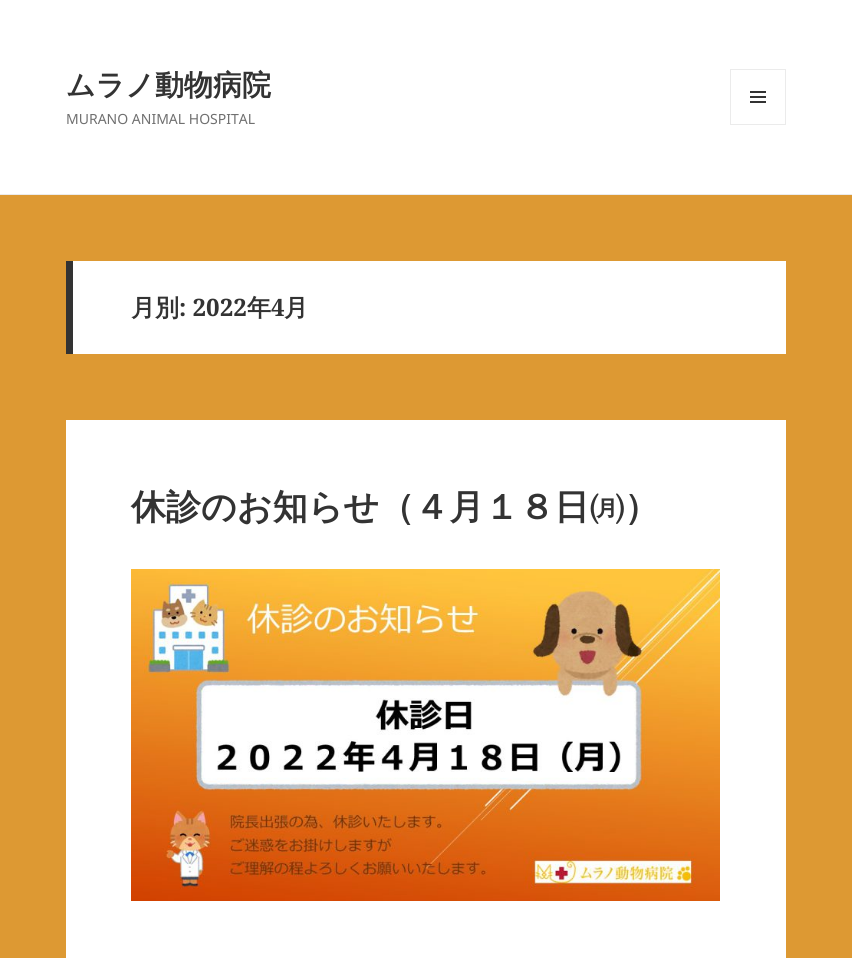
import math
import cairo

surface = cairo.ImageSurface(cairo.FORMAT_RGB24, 852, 958)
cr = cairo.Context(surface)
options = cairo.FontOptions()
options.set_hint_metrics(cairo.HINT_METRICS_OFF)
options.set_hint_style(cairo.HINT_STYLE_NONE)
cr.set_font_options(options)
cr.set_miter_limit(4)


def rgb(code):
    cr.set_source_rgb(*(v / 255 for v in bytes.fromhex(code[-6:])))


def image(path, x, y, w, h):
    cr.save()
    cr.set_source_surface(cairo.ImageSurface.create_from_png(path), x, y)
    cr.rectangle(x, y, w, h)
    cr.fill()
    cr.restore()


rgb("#dd9933")
cr.paint()
rgb("#ffffff")
cr.rectangle(0, 0, 852, 194)
cr.fill()
rgb("#ebebeb")
cr.rectangle(0, 194, 852, 1)
cr.fill()
cr.rectangle(730.5, 69.5, 55, 55)
cr.set_line_width(1)
cr.stroke()
image("img/1.png", 750, 91, 16, 12)
for x, y, w, h, color in [
    (73, 261, 713, 93, "#ffffff"),
    (66, 261, 7, 93, "#333333"),
    (66, 420, 720, 538, "#ffffff"),
]:
    rgb(color)
    cr.rectangle(x, y, w, h)
    cr.fill()
image("img/2.png", 131, 569, 589, 332)
cr.select_font_face("WenQuanYi Zen Hei", cairo.FONT_SLANT_NORMAL, cairo.FONT_WEIGHT_BOLD)
cr.set_font_size(29)
rgb("#333333")
cr.move_to(66, 95)
cr.show_text("ムラノ動物病院")
cr.select_font_face("Noto Sans")
cr.set_font_size(14)
rgb("#707070")
cr.move_to(66, 124)
cr.show_text("MURANO ANIMAL HOSPITAL")
cr.select_font_face("WenQuanYi Zen Hei", cairo.FONT_SLANT_NORMAL, cairo.FONT_WEIGHT_BOLD)
cr.set_font_size(24)
rgb("#333333")
cr.move_to(131, 316)
cr.show_text("月別")
cr.select_font_face("Noto Serif", cairo.FONT_SLANT_NORMAL, cairo.FONT_WEIGHT_BOLD)
cr.move_to(179, 316)
cr.show_text(": 2022")
cr.select_font_face("WenQuanYi Zen Hei", cairo.FONT_SLANT_NORMAL, cairo.FONT_WEIGHT_BOLD)
cr.move_to(247, 316)
cr.show_text("年")
cr.select_font_face("Noto Serif", cairo.FONT_SLANT_NORMAL, cairo.FONT_WEIGHT_BOLD)
cr.move_to(271, 316)
cr.show_text("4")
cr.select_font_face("WenQuanYi Zen Hei", cairo.FONT_SLANT_NORMAL, cairo.FONT_WEIGHT_BOLD)
cr.move_to(284, 316)
cr.show_text("月")
cr.set_font_size(35)
cr.move_to(131, 519)
cr.show_text("休診のお知らせ（４月１８日㈪）")
surface.write_to_png("page.png")
